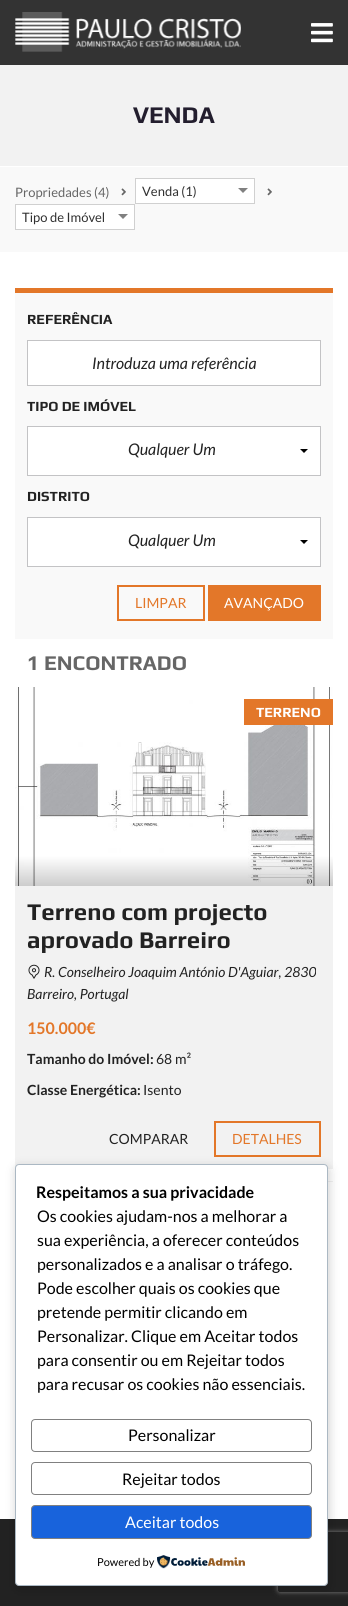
import math
import cairo

surface = cairo.ImageSurface(cairo.FORMAT_RGB24, 348, 1606)
cr = cairo.Context(surface)
options = cairo.FontOptions()
options.set_hint_metrics(cairo.HINT_METRICS_OFF)
options.set_hint_style(cairo.HINT_STYLE_NONE)
cr.set_font_options(options)
cr.set_miter_limit(4)


def rgb(code):
    cr.set_source_rgb(*(v / 255 for v in bytes.fromhex(code[-6:])))


def rrect(x, y, w, h, r):
    cr.new_sub_path()
    for i, (u, v) in enumerate([(x + w - r, y + h - r), (x + r, y + h - r), (x + r, y + r), (x + w - r, y + r)]):
        cr.arc(u, v, r, i * math.pi / 2, (i + 1) * math.pi / 2)
    cr.close_path()


def soft_shadow(x, y, w, h, r, blur, alpha):
    cr.push_group_with_content(cairo.CONTENT_ALPHA)
    cr.set_operator(cairo.OPERATOR_SOURCE)
    for i in range(15, -16, -2):
        e = blur * i / 6
        if min(w, h) + 2 * e > 0:
            cr.set_source_rgba(0, 0, 0, alpha * math.erfc((i - 1) / 8.5) / 2)
            rrect(x - e, y - e, w + 2 * e, h + 2 * e, max(0, min(r + e + blur * .6, min(w, h) / 2 + e)))
            cr.fill()
    cr.mask(cr.pop_group())


def image(path, x, y, w, h):
    cr.save()
    cr.set_source_surface(cairo.ImageSurface.create_from_png(path), x, y)
    cr.rectangle(x, y, w, h)
    cr.fill()
    cr.restore()


rgb("#ffffff")
cr.paint()
rgb("#333333")
cr.rectangle(0, 0, 348, 65)
cr.fill()
image("img/1.png", 15, 12, 226, 40)
image("img/2.png", 311, 23, 22, 20)
rgb("#f2f2f2")
cr.rectangle(0, 65, 348, 101)
cr.fill()
rgb("#f9f9f9")
cr.rectangle(0, 167, 348, 85)
cr.fill()
image("img/3.png", 121, 188, 5, 8)
rgb("#ffffff")
cr.rectangle(135.5, 178.5, 119, 25)
cr.fill_preserve()
rgb("#d0d0d0")
cr.set_line_width(1)
cr.stroke()
rgb("#808080")
cr.new_path()
cr.move_to(238, 188)
cr.line_to(248, 188)
cr.line_to(243, 193)
cr.close_path()
cr.fill()
image("img/3.png", 267, 188, 5, 8)
rgb("#ffffff")
cr.rectangle(15.5, 204.5, 119, 25)
cr.fill_preserve()
rgb("#d0d0d0")
cr.stroke()
rgb("#808080")
cr.new_path()
cr.move_to(118, 214)
cr.line_to(128, 214)
cr.line_to(123, 219)
cr.close_path()
cr.fill()
rgb("#f9f9f9")
cr.rectangle(15, 293, 318, 346)
cr.fill()
rgb("#e37729")
cr.rectangle(15, 288, 318, 5)
cr.fill()
rgb("#ffffff")
cr.rectangle(27.5, 340.5, 293, 45)
cr.fill_preserve()
rgb("#c3c3c5")
cr.stroke()
rgb("#ffffff")
cr.rectangle(27.5, 426.5, 293, 49)
cr.fill_preserve()
rgb("#c3c3c5")
cr.stroke()
rgb("#000000")
cr.new_path()
cr.move_to(300, 449)
cr.line_to(308, 449)
cr.line_to(304, 453)
cr.close_path()
cr.fill()
rgb("#ffffff")
cr.rectangle(27.5, 517.5, 293, 49)
cr.fill_preserve()
rgb("#c3c3c5")
cr.stroke()
rgb("#000000")
cr.new_path()
cr.move_to(300, 540)
cr.line_to(308, 540)
cr.line_to(304, 544)
cr.close_path()
cr.fill()
cr.rectangle(118, 586, 86, 34)
rgb("#e37729")
cr.set_line_width(2)
cr.stroke()
cr.rectangle(208, 585, 113, 36)
cr.fill()
rgb("#f2f2f2")
cr.rectangle(15, 886, 318, 283)
cr.fill()
image("img/4.png", 15, 687, 318, 199)
rgb("#e37729")
cr.rectangle(244, 699, 89, 26)
cr.fill()
image("img/5.png", 28, 964, 12, 15)
cr.rectangle(215, 1122, 105, 34)
cr.stroke()
rgb("#f0f0f0")
cr.rectangle(328, 1181, 5, 1)
cr.fill()
rgb("#222222")
cr.rectangle(0, 1519, 348, 87)
cr.fill()
rgb("#000000")
soft_shadow(16, 1167, 313, 422, 4, 5, 0.2)
cr.save()
cr.set_fill_rule(cairo.FILL_RULE_EVEN_ODD)
cr.new_path()
cr.move_to(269, 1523)
cr.line_to(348, 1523)
cr.line_to(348, 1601)
cr.line_to(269, 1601)
cr.close_path()
cr.move_to(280, 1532)
cr.line_to(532, 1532)
cr.curve_to(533, 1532, 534, 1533, 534, 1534)
cr.line_to(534, 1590)
cr.curve_to(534, 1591, 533, 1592, 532, 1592)
cr.line_to(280, 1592)
cr.curve_to(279, 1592, 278, 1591, 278, 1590)
cr.line_to(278, 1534)
cr.curve_to(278, 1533, 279, 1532, 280, 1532)
cr.close_path()
cr.clip()
rgb("#808080")
soft_shadow(278, 1532, 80, 60, 2, 2.5, 1)
cr.restore()
rgb("#ffffff")
rrect(15.5, 1164.5, 312, 421, 3.5)
cr.fill_preserve()
rgb("#abb8c3")
cr.set_line_width(1)
cr.stroke()
rrect(31.5, 1419.5, 280, 32, 3.5)
rgb("#808080")
cr.stroke()
rrect(31.5, 1462.5, 280, 32, 3.5)
cr.stroke()
rgb("#1863dc")
rrect(31.5, 1505.5, 280, 33, 3.5)
cr.fill_preserve()
rgb("#808080")
cr.stroke()
image("img/6.png", 157, 1555, 88, 14)
cr.select_font_face("Play", cairo.FONT_SLANT_NORMAL, cairo.FONT_WEIGHT_BOLD)
cr.set_font_size(24)
rgb("#231e2e")
cr.move_to(133, 123)
cr.show_text("VENDA")
cr.select_font_face("Lato")
cr.set_font_size(13)
rgb("#666666")
cr.move_to(15, 197)
cr.show_text("Propriedades (4)")
rgb("#303030")
cr.move_to(142, 196)
cr.show_text("Venda (1)")
cr.move_to(22, 222)
cr.show_text("Tipo de Imóvel")
cr.select_font_face("Play", cairo.FONT_SLANT_NORMAL, cairo.FONT_WEIGHT_BOLD)
cr.set_font_size(14)
rgb("#222222")
cr.move_to(27, 324)
cr.show_text("REFERÊNCIA")
cr.select_font_face("Lato", cairo.FONT_SLANT_ITALIC)
cr.set_font_size(16)
cr.move_to(92, 369)
cr.show_text("Introduza uma referência")
cr.select_font_face("Play", cairo.FONT_SLANT_NORMAL, cairo.FONT_WEIGHT_BOLD)
cr.set_font_size(14)
cr.move_to(27, 411)
cr.show_text("TIPO DE IMÓVEL")
cr.select_font_face("Lato", cairo.FONT_SLANT_ITALIC)
cr.set_font_size(16)
cr.move_to(128, 455)
cr.show_text("Qualquer Um")
cr.select_font_face("Play", cairo.FONT_SLANT_NORMAL, cairo.FONT_WEIGHT_BOLD)
cr.set_font_size(14)
cr.move_to(27, 501)
cr.show_text("DISTRITO")
cr.select_font_face("Lato", cairo.FONT_SLANT_ITALIC)
cr.set_font_size(16)
cr.move_to(128, 546)
cr.show_text("Qualquer Um")
cr.select_font_face("Lato")
cr.set_font_size(14)
rgb("#e37729")
cr.move_to(135, 608)
cr.show_text("LIMPAR")
rgb("#ffffff")
cr.move_to(224, 608)
cr.show_text("AVANÇADO")
cr.select_font_face("Play", cairo.FONT_SLANT_NORMAL, cairo.FONT_WEIGHT_BOLD)
cr.set_font_size(21)
rgb("#666666")
cr.move_to(27, 670)
cr.show_text("1 ENCONTRADO")
cr.set_font_size(14)
rgb("#ffffff")
cr.move_to(256, 717)
cr.show_text("TERRENO")
cr.set_font_size(24)
rgb("#222222")
cr.move_to(27, 920)
cr.show_text("Terreno com projecto")
cr.move_to(27, 948)
cr.show_text("aprovado Barreiro")
cr.select_font_face("Lato", cairo.FONT_SLANT_ITALIC)
cr.set_font_size(14)
cr.move_to(44, 977)
cr.show_text("R. Conselheiro Joaquim António D'Aguiar, 2830")
cr.move_to(27, 999)
cr.show_text("Barreiro, Portugal")
cr.select_font_face("Lato", cairo.FONT_SLANT_NORMAL, cairo.FONT_WEIGHT_BOLD)
cr.set_font_size(16)
rgb("#e37729")
cr.move_to(27, 1034)
cr.show_text("150.000€")
cr.set_font_size(14)
rgb("#222222")
cr.move_to(27, 1064)
cr.show_text("Tamanho do Imóvel:")
cr.select_font_face("Lato")
cr.move_to(156, 1064)
cr.show_text("68 m²")
cr.select_font_face("Lato", cairo.FONT_SLANT_NORMAL, cairo.FONT_WEIGHT_BOLD)
cr.move_to(27, 1095)
cr.show_text("Classe Energética:")
cr.select_font_face("Lato")
cr.move_to(143, 1095)
cr.show_text("Isento")
cr.move_to(109, 1144)
cr.show_text("COMPARAR")
rgb("#e37729")
cr.move_to(232, 1144)
cr.show_text("DETALHES")
cr.select_font_face("Lato", cairo.FONT_SLANT_NORMAL, cairo.FONT_WEIGHT_BOLD)
cr.set_font_size(16)
rgb("#000000")
cr.move_to(36, 1198)
cr.show_text("Respeitamos a sua privacidade")
cr.select_font_face("Lato")
for x, y, s in [
    (37, 1222, "Os cookies ajudam-nos a melhorar a"),
    (37, 1246, "sua experiência, a oferecer conteúdos"),
    (37, 1270, "personalizados e a analisar o tráfego."),
    (37, 1294, "Pode escolher quais os cookies que"),
    (37, 1318, "pretende permitir clicando em"),
    (37, 1342, "Personalizar. Clique em Aceitar todos"),
    (37, 1366, "para consentir ou em Rejeitar todos"),
    (37, 1390, "para recusar os cookies não essenciais."),
    (128, 1441, "Personalizar"),
    (122, 1485, "Rejeitar todos"),
]:
    cr.move_to(x, y)
    cr.show_text(s)
rgb("#ffffff")
cr.move_to(125, 1528)
cr.show_text("Aceitar todos")
cr.set_font_size(11)
rgb("#000000")
cr.move_to(97, 1566)
cr.show_text("Powered by")
surface.write_to_png("page.png")
